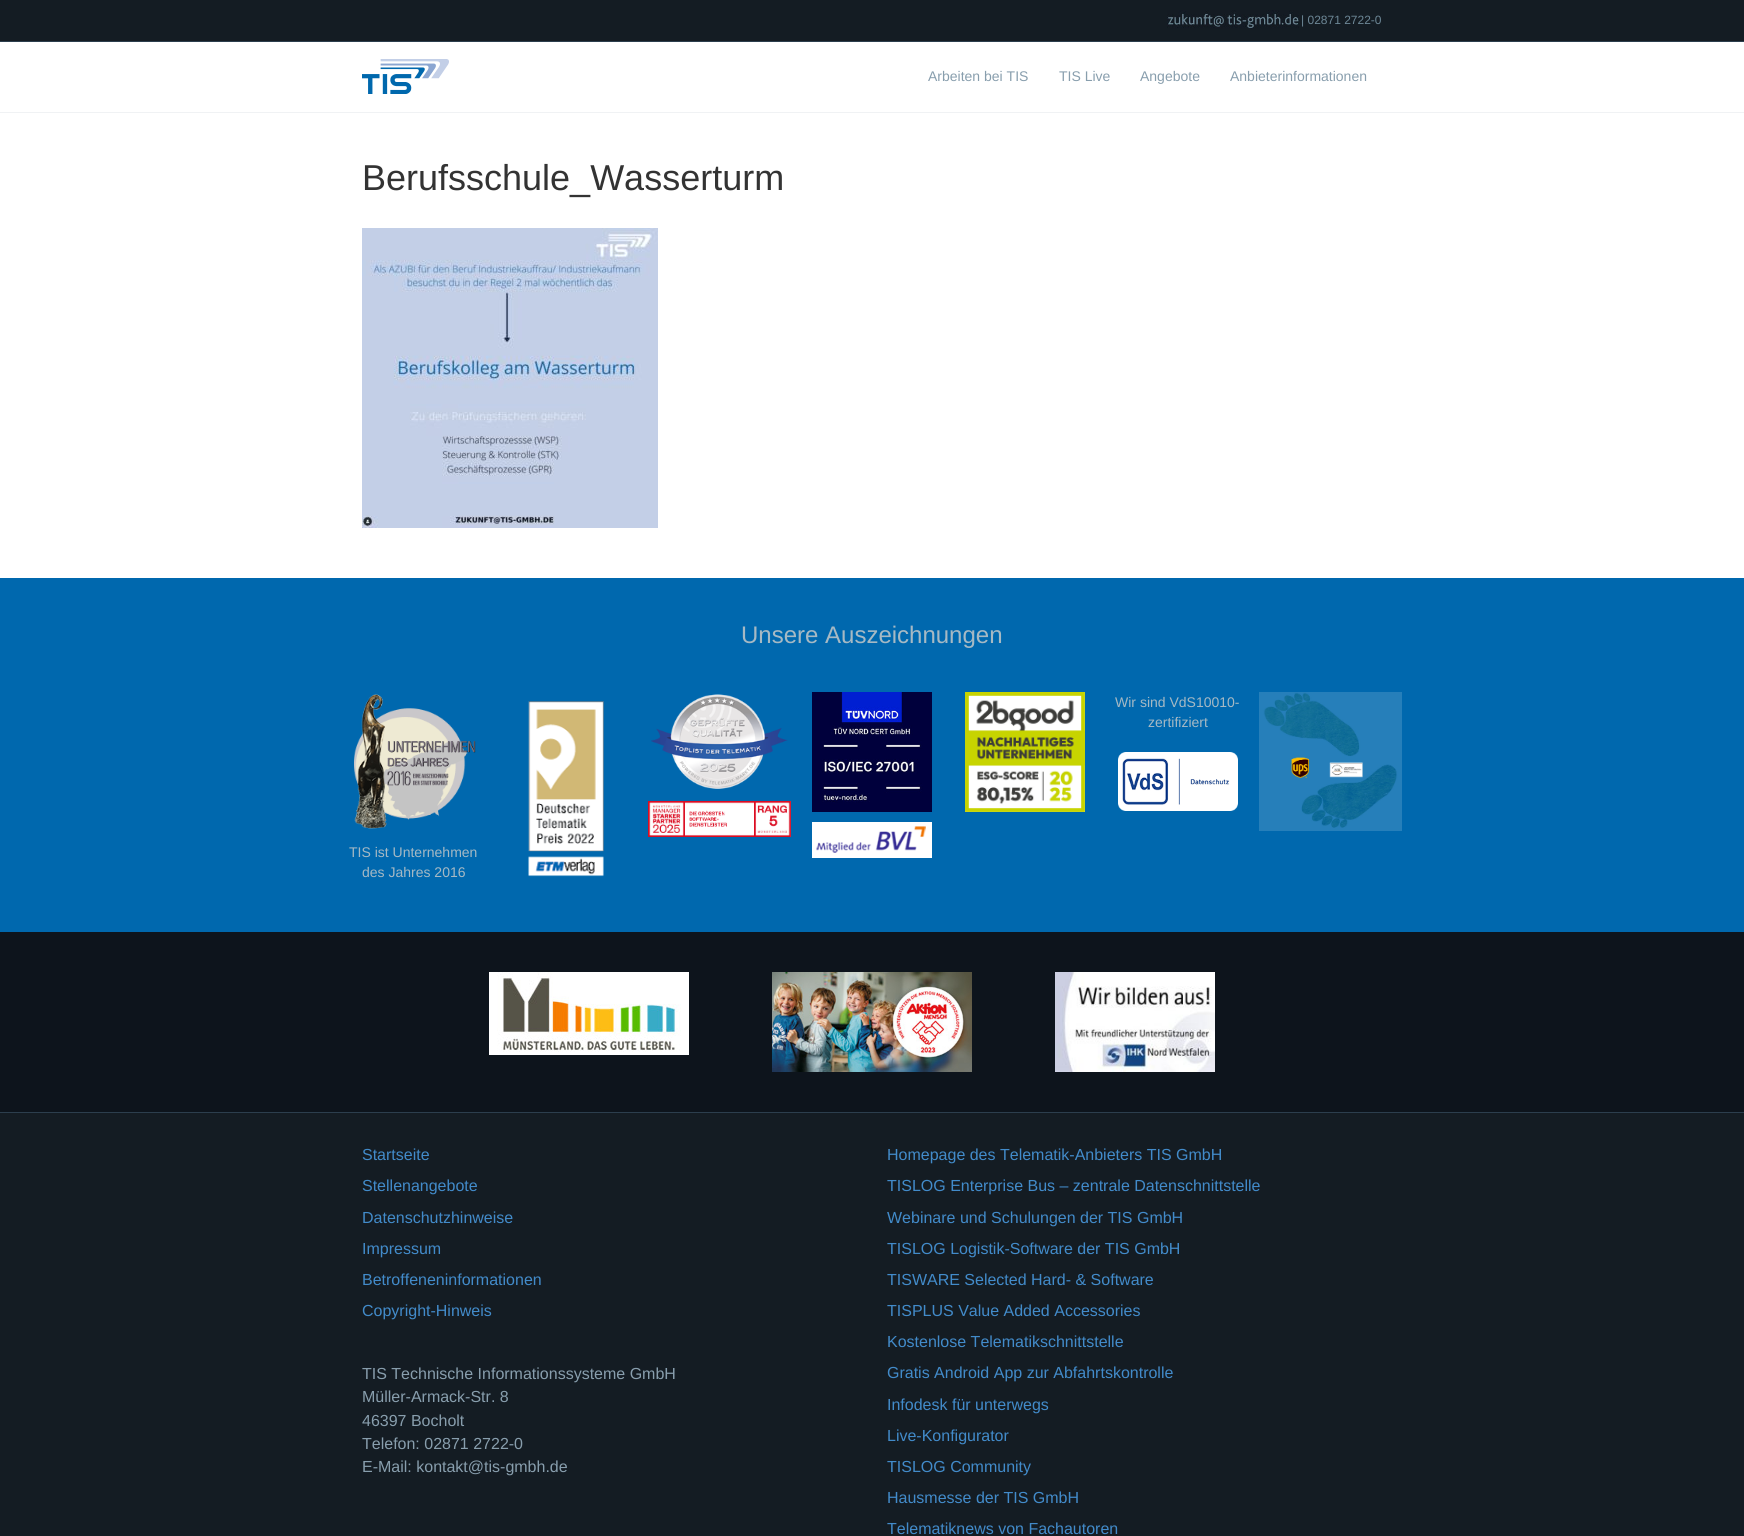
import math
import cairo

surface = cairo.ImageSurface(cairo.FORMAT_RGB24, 1744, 1536)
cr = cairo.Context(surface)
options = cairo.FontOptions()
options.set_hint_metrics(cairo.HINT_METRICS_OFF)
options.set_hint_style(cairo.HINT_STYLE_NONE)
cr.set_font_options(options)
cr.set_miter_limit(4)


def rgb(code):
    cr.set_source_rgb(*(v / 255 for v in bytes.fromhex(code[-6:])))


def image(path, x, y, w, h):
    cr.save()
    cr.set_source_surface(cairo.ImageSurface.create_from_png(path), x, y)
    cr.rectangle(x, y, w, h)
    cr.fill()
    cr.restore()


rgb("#0068ae")
cr.paint()
rgb("#141c23")
cr.rectangle(0, 0, 1744, 41)
cr.fill()
rgb("#2c3e4d")
cr.rectangle(0, 41, 1744, 1)
cr.fill()
image("img/1.png", 1167, 10, 132, 19)
rgb("#ffffff")
cr.rectangle(0, 42, 1744, 70)
cr.fill()
rgb("#f0f2f4")
cr.rectangle(0, 112, 1744, 1)
cr.fill()
image("img/2.png", 362, 59, 87, 35)
rgb("#ffffff")
cr.rectangle(0, 113, 1744, 465)
cr.fill()
image("img/3.png", 362, 228, 296, 300)
image("img/4.png", 354, 694, 122, 135)
image("img/5.png", 528, 701, 76, 176)
image("img/6.png", 651, 694, 137, 95)
image("img/7.png", 648, 801, 143, 36)
image("img/8.png", 812, 692, 120, 120)
image("img/9.png", 812, 822, 120, 36)
image("img/10.png", 965, 692, 120, 120)
image("img/11.png", 1118, 752, 120, 59)
image("img/12.png", 1259, 692, 143, 139)
rgb("#0d141c")
cr.rectangle(0, 932, 1744, 180)
cr.fill()
image("img/13.png", 489, 972, 200, 83)
image("img/14.png", 772, 972, 200, 100)
image("img/15.png", 1055, 972, 160, 100)
rgb("#141c23")
cr.rectangle(0, 1113, 1744, 423)
cr.fill()
rgb("#2c3e4d")
cr.rectangle(0, 1112, 1744, 1)
cr.fill()
cr.select_font_face("Liberation Sans")
cr.set_font_size(12)
rgb("#6d8796")
cr.move_to(1301, 24)
cr.show_text("| 02871 2722-0")
cr.set_font_size(14)
rgb("#889ead")
for x, y, s in [
    (928, 81, "Arbeiten bei TIS"),
    (1059, 81, "TIS Live"),
    (1140, 81, "Angebote"),
    (1230, 81, "Anbieterinformationen"),
]:
    cr.move_to(x, y)
    cr.show_text(s)
cr.set_font_size(36)
rgb("#333333")
cr.move_to(362, 190)
cr.show_text("Berufsschule_Wasserturm")
cr.set_font_size(24)
rgb("#a6b9c4")
cr.move_to(741, 643)
cr.show_text("Unsere Auszeichnungen")
cr.set_font_size(14)
for x, y, s in [
    (349, 857, "TIS ist Unternehmen"),
    (362, 877, "des Jahres 2016"),
    (1115, 707, "Wir sind VdS10010-"),
    (1148, 727, "zertifiziert"),
]:
    cr.move_to(x, y)
    cr.show_text(s)
cr.set_font_size(16)
rgb("#428bca")
for x, y, s in [
    (362, 1160, "Startseite"),
    (362, 1191, "Stellenangebote"),
    (362, 1223, "Datenschutzhinweise"),
    (362, 1254, "Impressum"),
    (362, 1285, "Betroffeneninformationen"),
    (362, 1316, "Copyright-Hinweis"),
]:
    cr.move_to(x, y)
    cr.show_text(s)
rgb("#889ead")
for x, y, s in [
    (362, 1379, "TIS Technische Informationssysteme GmbH"),
    (362, 1402, "Müller-Armack-Str. 8"),
    (362, 1426, "46397 Bocholt"),
    (362, 1449, "Telefon: 02871 2722-0"),
    (362, 1472, "E-Mail: kontakt@tis-gmbh.de"),
]:
    cr.move_to(x, y)
    cr.show_text(s)
rgb("#428bca")
for x, y, s in [
    (887, 1160, "Homepage des Telematik-Anbieters TIS GmbH"),
    (887, 1191, "TISLOG Enterprise Bus – zentrale Datenschnittstelle"),
    (887, 1223, "Webinare und Schulungen der TIS GmbH"),
    (887, 1254, "TISLOG Logistik-Software der TIS GmbH"),
    (887, 1285, "TISWARE Selected Hard- & Software"),
    (887, 1316, "TISPLUS Value Added Accessories"),
    (887, 1347, "Kostenlose Telematikschnittstelle"),
    (887, 1378, "Gratis Android App zur Abfahrtskontrolle"),
    (887, 1410, "Infodesk für unterwegs"),
    (887, 1441, "Live-Konfigurator"),
    (887, 1472, "TISLOG Community"),
    (887, 1503, "Hausmesse der TIS GmbH"),
    (887, 1534, "Telematiknews von Fachautoren"),
]:
    cr.move_to(x, y)
    cr.show_text(s)
surface.write_to_png("page.png")
